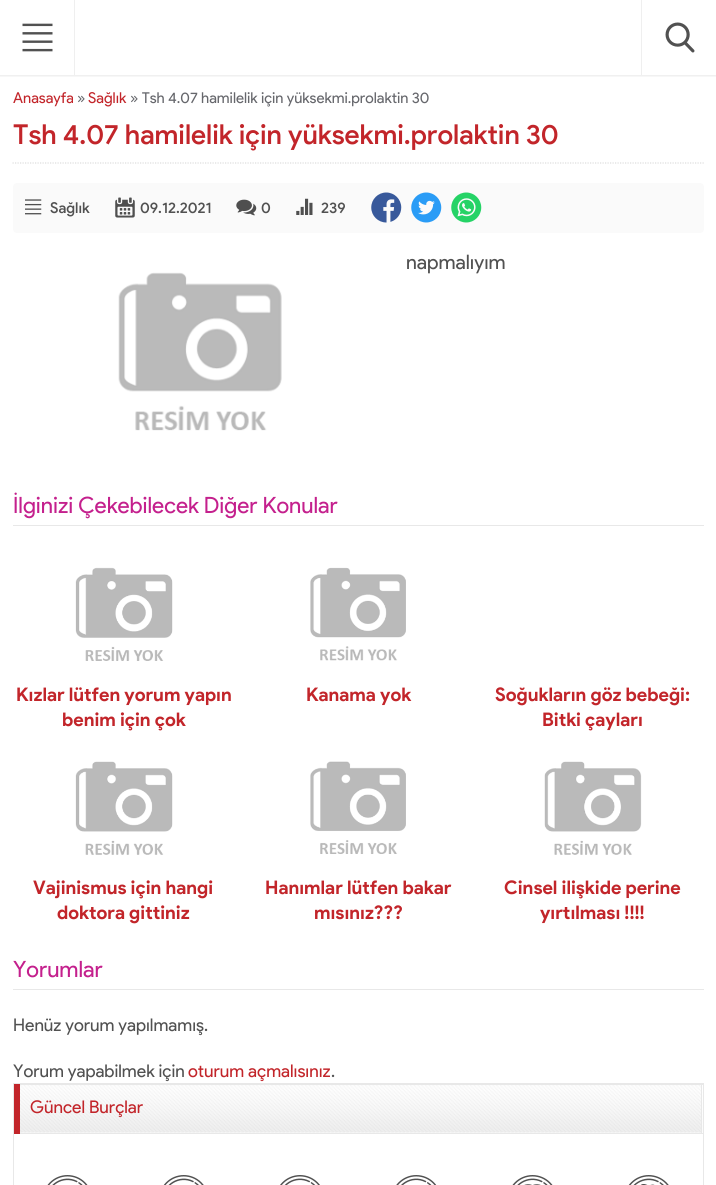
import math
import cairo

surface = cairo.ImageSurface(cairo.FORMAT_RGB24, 716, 1185)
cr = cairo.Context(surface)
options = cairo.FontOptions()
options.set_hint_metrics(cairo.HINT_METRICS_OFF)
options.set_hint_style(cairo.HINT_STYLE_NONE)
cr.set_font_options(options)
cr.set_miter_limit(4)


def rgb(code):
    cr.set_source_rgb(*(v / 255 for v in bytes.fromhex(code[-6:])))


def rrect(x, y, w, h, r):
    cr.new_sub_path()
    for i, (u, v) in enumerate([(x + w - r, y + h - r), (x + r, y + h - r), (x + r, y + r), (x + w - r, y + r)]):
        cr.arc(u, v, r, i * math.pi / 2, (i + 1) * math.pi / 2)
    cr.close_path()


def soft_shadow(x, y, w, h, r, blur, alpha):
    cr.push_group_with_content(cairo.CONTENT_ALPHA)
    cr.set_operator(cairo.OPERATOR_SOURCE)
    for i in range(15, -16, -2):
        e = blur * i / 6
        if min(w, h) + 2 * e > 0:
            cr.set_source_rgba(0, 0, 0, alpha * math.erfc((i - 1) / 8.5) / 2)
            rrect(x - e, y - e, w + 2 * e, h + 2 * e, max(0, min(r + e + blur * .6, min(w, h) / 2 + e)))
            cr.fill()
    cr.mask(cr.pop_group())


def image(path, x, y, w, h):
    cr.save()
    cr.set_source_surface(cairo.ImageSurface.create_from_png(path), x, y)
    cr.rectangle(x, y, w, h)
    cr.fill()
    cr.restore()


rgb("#ffffff")
cr.paint()
cr.save()
cr.rectangle(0, 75, 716, 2)
cr.clip()
rgb("#000000")
soft_shadow(0, 0, 716, 75, 0, 2, 0.15)
cr.restore()
rgb("#efefef")
cr.rectangle(74, 0, 1, 75)
cr.fill()
image("img/1.png", 22, 23, 31, 29)
cr.rectangle(641, 0, 1, 75)
cr.fill()
image("img/2.png", 665, 22, 30, 31)
cr.new_path()
cr.move_to(12.5, 163)
cr.line_to(704, 163)
rgb("#dddddd")
cr.set_line_width(1.2)
cr.set_dash([1.25, 1.25])
cr.stroke()
rgb("#fafafa")
rrect(13, 183, 691, 50, 4)
cr.fill()
image("img/3.png", 25, 199, 17, 16)
image("img/4.png", 115, 197, 20, 21)
image("img/5.png", 236, 199, 21, 17)
image("img/6.png", 296, 198, 17, 17)
image("img/7.png", 371, 192, 31, 31)
image("img/8.png", 411, 192, 31, 31)
image("img/9.png", 451, 192, 31, 31)
image("img/10.png", 118, 272, 164, 159)
rgb("#e8e8e8")
cr.rectangle(13, 525, 691, 1)
cr.fill()
image("img/11.png", 75, 567, 98, 94)
image("img/12.png", 310, 567, 96, 94)
image("img/13.png", 75, 761, 98, 94)
image("img/14.png", 310, 761, 96, 93)
image("img/15.png", 544, 761, 98, 94)
cr.rectangle(13, 989, 691, 1)
cr.fill()
cr.rectangle(13.5, 1083.5, 690, 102)
cr.set_line_width(1)
cr.set_dash([])
cr.stroke()
rgb("#c2252a")
cr.rectangle(14, 1084, 6, 50)
cr.fill()
image("img/16.png", 20, 1085, 683, 48)
for x, y, w, h, color in [
    (20, 1084, 683, 1, "#e8e8e8"),
    (701, 1084, 1, 50, "#e8e8e8"),
    (20, 1133, 683, 1, "#e8e8e8"),
]:
    rgb(color)
    cr.rectangle(x, y, w, h)
    cr.fill()
image("img/17.png", 47, 1175, 41, 10)
image("img/18.png", 163, 1175, 41, 10)
image("img/19.png", 280, 1175, 40, 10)
image("img/20.png", 396, 1175, 41, 10)
image("img/21.png", 512, 1175, 41, 10)
image("img/22.png", 628, 1175, 41, 10)
cr.select_font_face("Product Sans")
cr.set_font_size(15)
rgb("#c2252a")
cr.move_to(13, 103)
cr.show_text("Anasayfa")
rgb("#66676c")
cr.move_to(77, 103)
cr.show_text("»")
rgb("#c2252a")
cr.move_to(88, 103)
cr.show_text("Sağlık")
rgb("#66676c")
cr.move_to(130, 103)
cr.show_text("» Tsh 4.07 hamilelik için yüksekmi.prolaktin 30")
cr.select_font_face("Product Sans Medium")
cr.set_font_size(27.5)
rgb("#c2252a")
cr.move_to(13, 144)
cr.show_text("Tsh 4.07 hamilelik için yüksekmi.prolaktin 30")
cr.set_font_size(15)
rgb("#515151")
for x, y, s in [
    (50, 213, "Sağlık"),
    (140, 213, "09.12.2021"),
    (261, 213, "0"),
    (321, 213, "239"),
]:
    cr.move_to(x, y)
    cr.show_text(s)
cr.select_font_face("Product Sans")
cr.set_font_size(20)
cr.move_to(406, 269)
cr.show_text("napmalıyım")
cr.set_font_size(22.5)
rgb("#c4208d")
cr.move_to(13, 513)
cr.show_text("İlginizi Çekebilecek Diğer Konular")
cr.select_font_face("Product Sans", cairo.FONT_SLANT_NORMAL, cairo.FONT_WEIGHT_BOLD)
cr.set_font_size(18.75)
rgb("#c2252a")
for x, y, s in [
    (16, 701, "Kızlar lütfen yorum yapın"),
    (62, 726, "benim için çok"),
    (306, 701, "Kanama yok"),
    (495, 701, "Soğukların göz bebeği:"),
    (542, 726, "Bitki çayları"),
    (33, 894, "Vajinismus için hangi"),
    (57, 919, "doktora gittiniz"),
    (265, 894, "Hanımlar lütfen bakar"),
    (314, 919, "mısınız???"),
    (504, 894, "Cinsel ilişkide perine"),
    (540, 919, "yırtılması !!!!"),
]:
    cr.move_to(x, y)
    cr.show_text(s)
cr.select_font_face("Product Sans")
cr.set_font_size(22.5)
rgb("#c4208d")
cr.move_to(13, 977)
cr.show_text("Yorumlar")
cr.set_font_size(17.5)
rgb("#515151")
cr.move_to(13, 1031)
cr.show_text("Henüz yorum yapılmamış.")
cr.move_to(13, 1077)
cr.show_text("Yorum yapabilmek için")
rgb("#c2252a")
cr.move_to(188, 1077)
cr.show_text("oturum açmalısınız")
rgb("#515151")
cr.move_to(331, 1077)
cr.show_text(".")
rgb("#c2252a")
cr.move_to(30, 1113)
cr.show_text("Güncel Burçlar")
surface.write_to_png("page.png")
